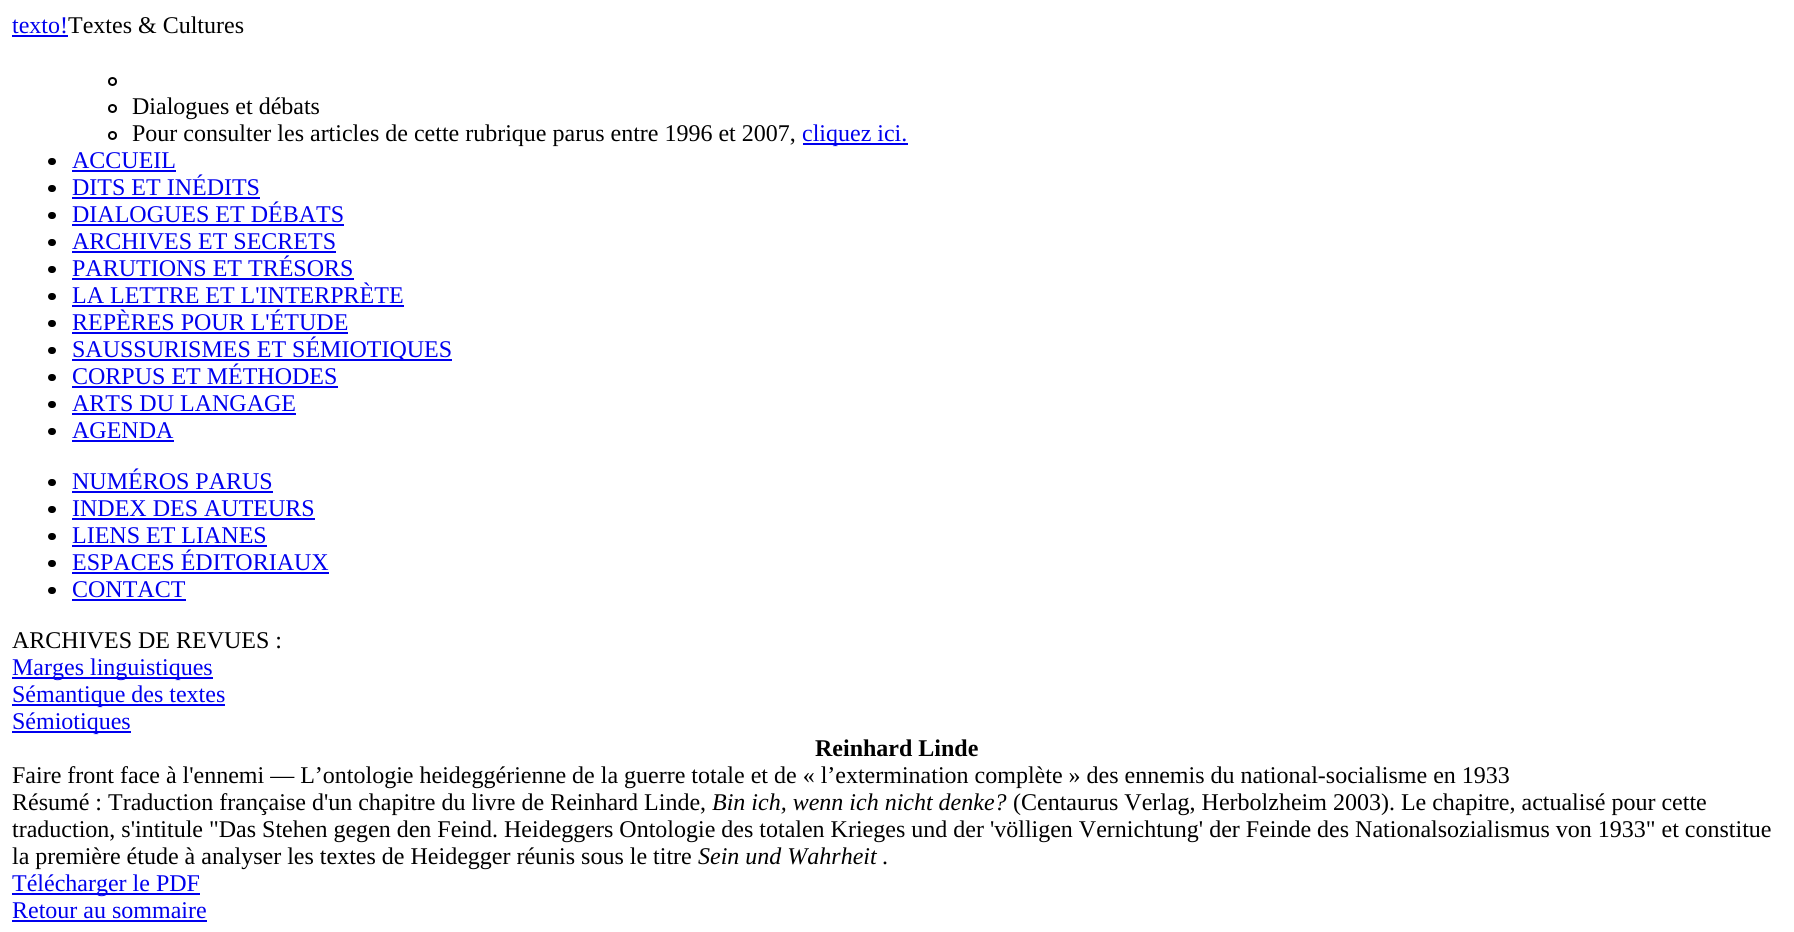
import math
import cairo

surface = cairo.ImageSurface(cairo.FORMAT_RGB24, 1794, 932)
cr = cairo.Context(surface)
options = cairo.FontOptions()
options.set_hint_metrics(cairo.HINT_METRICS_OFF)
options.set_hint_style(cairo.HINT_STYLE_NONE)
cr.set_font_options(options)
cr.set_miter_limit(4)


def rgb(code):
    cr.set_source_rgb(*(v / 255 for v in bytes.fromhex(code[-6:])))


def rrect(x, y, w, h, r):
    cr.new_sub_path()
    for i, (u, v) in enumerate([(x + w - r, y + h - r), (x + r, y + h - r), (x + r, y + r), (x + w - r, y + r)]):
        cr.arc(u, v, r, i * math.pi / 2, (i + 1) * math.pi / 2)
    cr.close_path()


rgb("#ffffff")
cr.paint()
rgb("#0000ee")
cr.rectangle(12, 35, 56, 2)
cr.fill()
cr.arc(112.5, 81.5, 3.5, 0, 2 * math.pi)
rgb("#000000")
cr.stroke()
cr.arc(112.5, 108.5, 3.5, 0, 2 * math.pi)
cr.stroke()
cr.arc(112.5, 135.5, 3.5, 0, 2 * math.pi)
cr.stroke()
rgb("#0000ee")
cr.rectangle(803, 143, 105, 2)
cr.fill()
rgb("#000000")
rrect(48, 158, 8, 7, 3.5)
cr.fill()
rgb("#0000ee")
cr.rectangle(72, 170, 104, 2)
cr.fill()
rgb("#000000")
rrect(48, 185, 8, 7, 3.5)
cr.fill()
rgb("#0000ee")
cr.rectangle(72, 197, 188, 2)
cr.fill()
rgb("#000000")
rrect(48, 212, 8, 7, 3.5)
cr.fill()
rgb("#0000ee")
cr.rectangle(72, 224, 272, 2)
cr.fill()
rgb("#000000")
rrect(48, 239, 8, 7, 3.5)
cr.fill()
rgb("#0000ee")
cr.rectangle(72, 251, 264, 2)
cr.fill()
rgb("#000000")
rrect(48, 266, 8, 7, 3.5)
cr.fill()
rgb("#0000ee")
cr.rectangle(72, 278, 282, 2)
cr.fill()
rgb("#000000")
rrect(48, 293, 8, 7, 3.5)
cr.fill()
rgb("#0000ee")
cr.rectangle(72, 305, 332, 2)
cr.fill()
rgb("#000000")
rrect(48, 320, 8, 7, 3.5)
cr.fill()
rgb("#0000ee")
cr.rectangle(72, 332, 276, 2)
cr.fill()
rgb("#000000")
rrect(48, 347, 8, 7, 3.5)
cr.fill()
rgb("#0000ee")
cr.rectangle(72, 359, 380, 2)
cr.fill()
rgb("#000000")
rrect(48, 374, 8, 7, 3.5)
cr.fill()
rgb("#0000ee")
cr.rectangle(72, 386, 266, 2)
cr.fill()
rgb("#000000")
rrect(48, 401, 8, 7, 3.5)
cr.fill()
rgb("#0000ee")
cr.rectangle(72, 413, 224, 2)
cr.fill()
rgb("#000000")
rrect(48, 428, 8, 7, 3.5)
cr.fill()
rgb("#0000ee")
cr.rectangle(72, 440, 102, 2)
cr.fill()
rgb("#000000")
rrect(48, 479, 8, 7, 3.5)
cr.fill()
rgb("#0000ee")
cr.rectangle(72, 491, 201, 2)
cr.fill()
rgb("#000000")
rrect(48, 506, 8, 7, 3.5)
cr.fill()
rgb("#0000ee")
cr.rectangle(72, 518, 243, 2)
cr.fill()
rgb("#000000")
rrect(48, 533, 8, 7, 3.5)
cr.fill()
rgb("#0000ee")
cr.rectangle(72, 545, 195, 2)
cr.fill()
rgb("#000000")
rrect(48, 560, 8, 7, 3.5)
cr.fill()
rgb("#0000ee")
cr.rectangle(72, 572, 257, 2)
cr.fill()
rgb("#000000")
rrect(48, 587, 8, 7, 3.5)
cr.fill()
for x, y, w, h, color in [
    (72, 599, 114, 2, "#0000ee"),
    (12, 677, 201, 2, "#0000ee"),
    (12, 704, 213, 2, "#0000ee"),
    (12, 731, 119, 2, "#0000ee"),
    (12, 893, 188, 2, "#0000ee"),
    (12, 920, 195, 2, "#0000ee"),
]:
    rgb(color)
    cr.rectangle(x, y, w, h)
    cr.fill()
cr.select_font_face("Liberation Serif")
cr.set_font_size(24)
cr.move_to(12, 33)
cr.show_text("texto!")
rgb("#000000")
for x, y, s in [
    (68, 33, "Textes & Cultures"),
    (132, 114, "Dialogues et débats"),
    (132, 141, "Pour consulter les articles de cette rubrique parus entre 1996 et 2007,"),
]:
    cr.move_to(x, y)
    cr.show_text(s)
rgb("#0000ee")
for x, y, s in [
    (802, 141, "cliquez ici."),
    (72, 168, "ACCUEIL"),
    (72, 195, "DITS ET INÉDITS"),
    (72, 222, "DIALOGUES ET DÉBATS"),
    (72, 249, "ARCHIVES ET SECRETS"),
    (72, 276, "PARUTIONS ET TRÉSORS"),
    (72, 303, "LA LETTRE ET L'INTERPRÈTE"),
    (72, 330, "REPÈRES POUR L'ÉTUDE"),
    (72, 357, "SAUSSURISMES ET SÉMIOTIQUES"),
    (72, 384, "CORPUS ET MÉTHODES"),
    (72, 411, "ARTS DU LANGAGE"),
    (72, 438, "AGENDA"),
    (72, 489, "NUMÉROS PARUS"),
    (72, 516, "INDEX DES AUTEURS"),
    (72, 543, "LIENS ET LIANES"),
    (72, 570, "ESPACES ÉDITORIAUX"),
    (72, 597, "CONTACT"),
]:
    cr.move_to(x, y)
    cr.show_text(s)
rgb("#000000")
cr.move_to(12, 648)
cr.show_text("ARCHIVES DE REVUES :")
rgb("#0000ee")
for x, y, s in [
    (12, 675, "Marges linguistiques"),
    (12, 702, "Sémantique des textes"),
    (12, 729, "Sémiotiques"),
]:
    cr.move_to(x, y)
    cr.show_text(s)
cr.select_font_face("Liberation Serif", cairo.FONT_SLANT_NORMAL, cairo.FONT_WEIGHT_BOLD)
rgb("#000000")
cr.move_to(815, 756)
cr.show_text("Reinhard Linde")
cr.select_font_face("Liberation Serif")
cr.move_to(12, 783)
cr.show_text("Faire front face à l'ennemi — L’ontologie heideggérienne de la guerre totale et de « l’extermination complète » des ennemis du national-socialisme en 1933")
cr.move_to(12, 810)
cr.show_text("Résumé : Traduction française d'un chapitre du livre de Reinhard Linde,")
cr.select_font_face("Liberation Serif", cairo.FONT_SLANT_ITALIC)
cr.move_to(712, 810)
cr.show_text("Bin ich, wenn ich nicht denke?")
cr.select_font_face("Liberation Serif")
for x, y, s in [
    (1013, 810, "(Centaurus Verlag, Herbolzheim 2003). Le chapitre, actualisé pour cette"),
    (12, 837, "traduction, s'intitule \"Das Stehen gegen den Feind. Heideggers Ontologie des totalen Krieges und der 'völligen Vernichtung' der Feinde des Nationalsozialismus von 1933\" et constitue"),
    (12, 864, "la première étude à analyser les textes de Heidegger réunis sous le titre"),
]:
    cr.move_to(x, y)
    cr.show_text(s)
cr.select_font_face("Liberation Serif", cairo.FONT_SLANT_ITALIC)
cr.move_to(698, 864)
cr.show_text("Sein und Wahrheit")
cr.select_font_face("Liberation Serif")
cr.move_to(882, 864)
cr.show_text(".")
rgb("#0000ee")
cr.move_to(12, 891)
cr.show_text("Télécharger le PDF")
cr.move_to(12, 918)
cr.show_text("Retour au sommaire")
surface.write_to_png("page.png")
